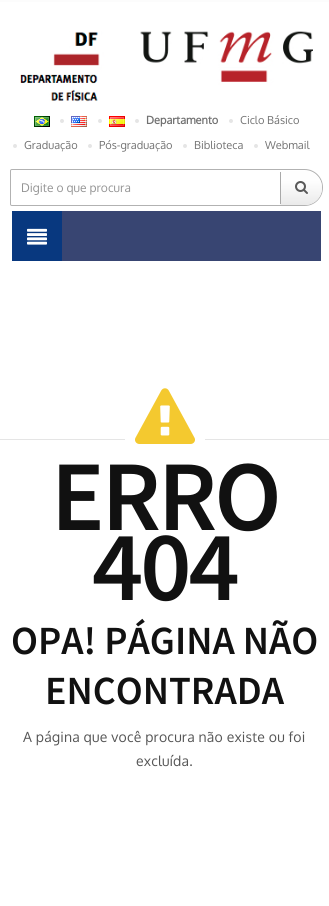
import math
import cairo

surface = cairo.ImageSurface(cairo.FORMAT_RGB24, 329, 906)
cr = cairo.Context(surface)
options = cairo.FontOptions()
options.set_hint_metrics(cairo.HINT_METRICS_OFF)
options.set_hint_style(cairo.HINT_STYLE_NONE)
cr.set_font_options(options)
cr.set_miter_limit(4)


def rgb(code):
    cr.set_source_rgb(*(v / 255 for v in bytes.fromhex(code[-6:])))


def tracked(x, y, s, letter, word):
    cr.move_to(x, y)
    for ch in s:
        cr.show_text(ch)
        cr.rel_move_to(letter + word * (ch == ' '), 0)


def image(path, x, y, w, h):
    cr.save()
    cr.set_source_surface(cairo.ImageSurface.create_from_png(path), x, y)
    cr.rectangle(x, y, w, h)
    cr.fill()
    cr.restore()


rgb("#ffffff")
cr.paint()
rgb("#fcfcfc")
cr.rectangle(0, 0, 329, 2)
cr.fill()
image("img/1.png", 20, 31, 293, 71)
image("img/2.png", 34, 116, 16, 11)
rgb("#e5e5e5")
cr.arc(62, 121, 2, 0, 2 * math.pi)
cr.fill()
image("img/3.png", 71, 116, 16, 11)
cr.arc(100, 121, 2, 0, 2 * math.pi)
cr.fill()
image("img/4.png", 109, 116, 16, 11)
cr.arc(137, 121, 2, 0, 2 * math.pi)
cr.fill()
cr.arc(231, 121, 2, 0, 2 * math.pi)
cr.fill()
cr.arc(15, 146, 2, 0, 2 * math.pi)
cr.fill()
cr.arc(90, 146, 2, 0, 2 * math.pi)
cr.fill()
cr.arc(185, 146, 2, 0, 2 * math.pi)
cr.fill()
cr.arc(256, 146, 2, 0, 2 * math.pi)
cr.fill()
cr.new_path()
cr.move_to(12, 169.5)
cr.line_to(304.5, 169.5)
cr.curve_to(314.5, 169.5, 322.5, 177.5, 322.5, 187.5)
cr.curve_to(322.5, 197.5, 314.5, 205.5, 304.5, 205.5)
cr.line_to(12, 205.5)
cr.curve_to(11, 205.5, 10.5, 205, 10.5, 204)
cr.line_to(10.5, 171)
cr.curve_to(10.5, 170, 11, 169.5, 12, 169.5)
cr.close_path()
rgb("#b2b2b2")
cr.set_line_width(1)
cr.stroke()
gradient = cairo.LinearGradient(302, 171, 302, 205)
gradient.add_color_stop_rgba(0.29, 0.996, 0.996, 0.996, 1)
gradient.add_color_stop_rgba(1, 0.918, 0.918, 0.918, 1)
cr.set_source(gradient)
cr.new_path()
cr.move_to(281.5, 171)
cr.line_to(305, 171)
cr.curve_to(314.5, 171, 322, 178.5, 322, 188)
cr.curve_to(322, 197.5, 314.5, 205, 305, 205)
cr.line_to(281.5, 205)
cr.curve_to(280.5, 205, 280, 204.5, 280, 203.5)
cr.line_to(280, 172.5)
cr.curve_to(280, 171.5, 280.5, 171, 281.5, 171)
cr.close_path()
cr.fill()
rgb("#a9a9a9")
cr.rectangle(280, 172, 1, 32)
cr.fill()
image("img/5.png", 295, 181, 13, 13)
rgb("#384572")
cr.rectangle(62, 211, 259, 50)
cr.fill()
rgb("#08387f")
cr.rectangle(12, 211, 50, 50)
cr.fill()
image("img/6.png", 27, 228, 20, 17)
rgb("#e5e5e5")
cr.rectangle(0, 439, 125, 1)
cr.fill()
image("img/7.png", 135, 388, 60, 56)
cr.rectangle(205, 439, 124, 1)
cr.fill()
cr.select_font_face("Oxygen", cairo.FONT_SLANT_NORMAL, cairo.FONT_WEIGHT_BOLD)
cr.set_font_size(11)
rgb("#717171")
cr.move_to(146, 124)
cr.show_text("Departamento")
cr.select_font_face("Oxygen")
for x, y, s in [
    (240, 124, "Ciclo Básico"),
    (24, 149, "Graduação"),
    (99, 149, "Pós-graduação"),
    (194, 149, "Biblioteca"),
    (265, 149, "Webmail"),
]:
    cr.move_to(x, y)
    cr.show_text(s)
cr.set_font_size(12)
rgb("#949494")
cr.move_to(21, 192)
cr.show_text("Digite o que procura")
cr.select_font_face("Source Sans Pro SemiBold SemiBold")
cr.set_font_size(100)
rgb("#111111")
tracked(51, 530, "ERRO", -3, 0)
tracked(92, 600, "404", -3, 0)
cr.set_font_size(40)
cr.move_to(11, 654)
cr.show_text("OPA! PÁGINA NÃO")
cr.move_to(45, 704)
cr.show_text("ENCONTRADA")
cr.select_font_face("Oxygen")
cr.set_font_size(14)
rgb("#555555")
tracked(23, 742, "A página que você procura não existe ou foi", 0.2, 0)
tracked(136, 766, "excluída.", 0.2, 0)
surface.write_to_png("page.png")
